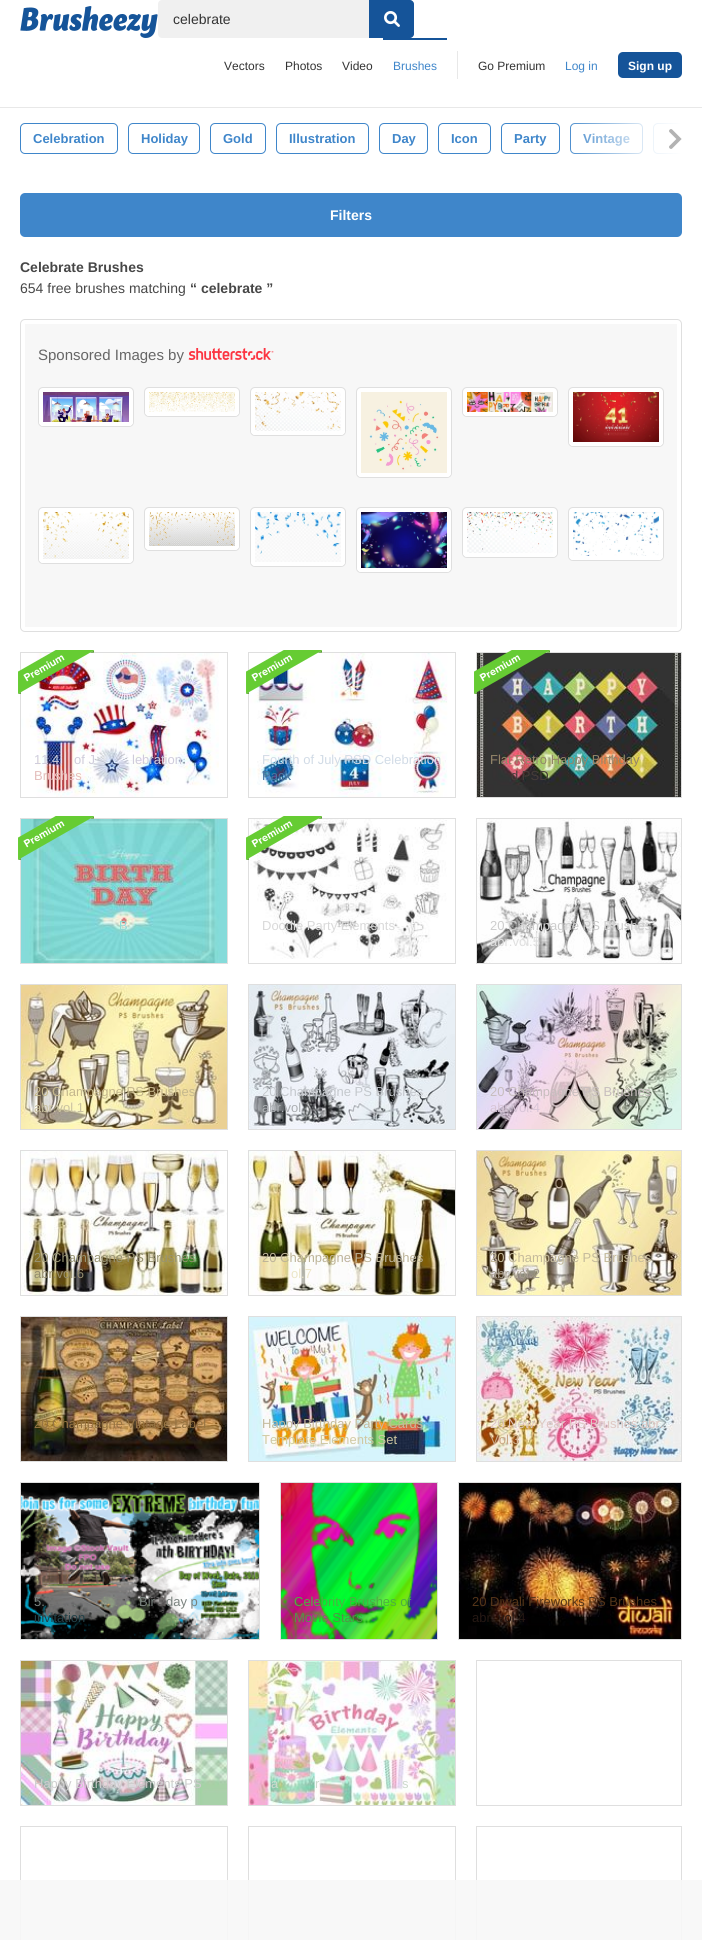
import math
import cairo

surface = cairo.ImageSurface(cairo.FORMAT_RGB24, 702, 1940)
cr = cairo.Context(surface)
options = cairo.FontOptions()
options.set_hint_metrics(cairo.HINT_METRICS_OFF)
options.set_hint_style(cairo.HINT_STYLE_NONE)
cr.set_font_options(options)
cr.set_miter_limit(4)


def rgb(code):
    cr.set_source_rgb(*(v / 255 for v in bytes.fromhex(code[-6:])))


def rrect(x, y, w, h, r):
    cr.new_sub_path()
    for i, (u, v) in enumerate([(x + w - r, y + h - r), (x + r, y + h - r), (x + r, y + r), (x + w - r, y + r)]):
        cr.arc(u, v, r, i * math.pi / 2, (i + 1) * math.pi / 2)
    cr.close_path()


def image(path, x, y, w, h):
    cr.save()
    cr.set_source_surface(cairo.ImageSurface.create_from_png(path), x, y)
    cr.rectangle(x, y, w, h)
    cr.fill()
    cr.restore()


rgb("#ffffff")
cr.paint()
rgb("#e8e8e8")
cr.rectangle(0, 107, 702, 1)
cr.fill()
image("img/1.png", 20, 6, 138, 32)
rgb("#f0f0f0")
rrect(158, 0, 256, 38, 4)
cr.fill()
rgb("#155499")
cr.new_path()
cr.move_to(369, 0)
cr.line_to(410, 0)
cr.curve_to(412, 0, 414, 2, 414, 4)
cr.line_to(414, 34)
cr.curve_to(414, 36, 412, 38, 410, 38)
cr.line_to(369, 38)
cr.close_path()
cr.fill()
image("img/2.png", 384, 11, 16, 16)
cr.rectangle(383, 38, 64, 2)
cr.fill()
rgb("#e8e8e8")
cr.rectangle(457, 51, 1, 28)
cr.fill()
rgb("#155499")
rrect(618, 52, 64, 26, 5)
cr.fill()
rrect(20.5, 123.5, 97, 30, 4.5)
rgb("#3f86ca")
cr.set_line_width(1)
cr.stroke()
rrect(128.5, 123.5, 71, 30, 4.5)
cr.stroke()
rrect(210.5, 123.5, 55, 30, 4.5)
cr.stroke()
rrect(276.5, 123.5, 92, 30, 4.5)
cr.stroke()
rrect(379.5, 123.5, 48, 30, 4.5)
cr.stroke()
rrect(438.5, 123.5, 52, 30, 4.5)
cr.stroke()
rrect(501.5, 123.5, 58, 30, 4.5)
cr.stroke()
rrect(570.5, 123.5, 72, 30, 4.5)
cr.stroke()
cr.save()
cr.rectangle(20, 123, 662, 44)
cr.clip()
rrect(653.5, 123.5, 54, 30, 4.5)
cr.stroke()
cr.restore()
rrect(20, 193, 662, 44, 5)
cr.fill()
rrect(20.5, 319.5, 661, 312, 4.5)
rgb("#dfdfdf")
cr.stroke()
rgb("#f7f7f7")
cr.rectangle(25, 324, 652, 303)
cr.fill()
image("img/4.png", 188, 348, 86, 12)
rgb("#ffffff")
rrect(38.5, 387.5, 95, 39, 4.5)
cr.fill_preserve()
rgb("#dfdfdf")
cr.stroke()
image("img/5.png", 43, 392, 86, 30)
rgb("#ffffff")
cr.new_path()
cr.move_to(39, 422)
cr.line_to(133, 422)
cr.curve_to(133, 424, 131, 426, 129, 426)
cr.line_to(43, 426)
cr.curve_to(41, 426, 39, 424, 39, 422)
cr.close_path()
cr.fill()
rrect(144.5, 387.5, 95, 29, 4.5)
cr.fill_preserve()
rgb("#dfdfdf")
cr.stroke()
image("img/6.png", 149, 392, 86, 20)
rgb("#ffffff")
cr.new_path()
cr.move_to(145, 412)
cr.line_to(239, 412)
cr.curve_to(239, 414, 237, 416, 235, 416)
cr.line_to(149, 416)
cr.curve_to(147, 416, 145, 414, 145, 412)
cr.close_path()
cr.fill()
rrect(250.5, 387.5, 95, 48, 4.5)
cr.fill_preserve()
rgb("#dfdfdf")
cr.stroke()
image("img/7.png", 255, 392, 86, 39)
rgb("#ffffff")
cr.new_path()
cr.move_to(251, 431)
cr.line_to(345, 431)
cr.curve_to(345, 433, 343, 435, 341, 435)
cr.line_to(255, 435)
cr.curve_to(253, 435, 251, 433, 251, 431)
cr.close_path()
cr.fill()
rrect(356.5, 387.5, 95, 90, 4.5)
cr.fill_preserve()
rgb("#dfdfdf")
cr.stroke()
image("img/8.png", 361, 392, 86, 81)
rgb("#ffffff")
cr.new_path()
cr.move_to(357, 473)
cr.line_to(451, 473)
cr.curve_to(451, 475, 449, 477, 447, 477)
cr.line_to(361, 477)
cr.curve_to(359, 477, 357, 475, 357, 473)
cr.close_path()
cr.fill()
rrect(462.5, 387.5, 95, 29, 4.5)
cr.fill_preserve()
rgb("#dfdfdf")
cr.stroke()
image("img/9.png", 467, 392, 86, 20)
rgb("#ffffff")
cr.new_path()
cr.move_to(463, 412)
cr.line_to(557, 412)
cr.curve_to(557, 414, 555, 416, 553, 416)
cr.line_to(467, 416)
cr.curve_to(465, 416, 463, 414, 463, 412)
cr.close_path()
cr.fill()
rrect(568.5, 387.5, 95, 59, 4.5)
cr.fill_preserve()
rgb("#dfdfdf")
cr.stroke()
image("img/10.png", 573, 392, 86, 50)
rgb("#ffffff")
cr.new_path()
cr.move_to(569, 442)
cr.line_to(663, 442)
cr.curve_to(663, 444, 661, 446, 659, 446)
cr.line_to(573, 446)
cr.curve_to(571, 446, 569, 444, 569, 442)
cr.close_path()
cr.fill()
rrect(38.5, 507.5, 95, 56, 4.5)
cr.fill_preserve()
rgb("#dfdfdf")
cr.stroke()
image("img/11.png", 43, 512, 86, 47)
rgb("#ffffff")
cr.new_path()
cr.move_to(39, 559)
cr.line_to(133, 559)
cr.curve_to(133, 561, 131, 563, 129, 563)
cr.line_to(43, 563)
cr.curve_to(41, 563, 39, 561, 39, 559)
cr.close_path()
cr.fill()
rrect(144.5, 507.5, 95, 43, 4.5)
cr.fill_preserve()
rgb("#dfdfdf")
cr.stroke()
image("img/12.png", 149, 512, 86, 34)
rgb("#ffffff")
cr.new_path()
cr.move_to(145, 546)
cr.line_to(239, 546)
cr.curve_to(239, 548, 237, 550, 235, 550)
cr.line_to(149, 550)
cr.curve_to(147, 550, 145, 548, 145, 546)
cr.close_path()
cr.fill()
rrect(250.5, 507.5, 95, 59, 4.5)
cr.fill_preserve()
rgb("#dfdfdf")
cr.stroke()
image("img/13.png", 255, 512, 86, 50)
rgb("#ffffff")
cr.new_path()
cr.move_to(251, 562)
cr.line_to(345, 562)
cr.curve_to(345, 564, 343, 566, 341, 566)
cr.line_to(255, 566)
cr.curve_to(253, 566, 251, 564, 251, 562)
cr.close_path()
cr.fill()
rrect(356.5, 507.5, 95, 65, 4.5)
cr.fill_preserve()
rgb("#dfdfdf")
cr.stroke()
image("img/14.png", 361, 512, 86, 56)
rgb("#ffffff")
cr.new_path()
cr.move_to(357, 568)
cr.line_to(451, 568)
cr.curve_to(451, 570, 449, 572, 447, 572)
cr.line_to(361, 572)
cr.curve_to(359, 572, 357, 570, 357, 568)
cr.close_path()
cr.fill()
rrect(462.5, 507.5, 95, 50, 4.5)
cr.fill_preserve()
rgb("#dfdfdf")
cr.stroke()
image("img/15.png", 467, 512, 86, 41)
rgb("#ffffff")
cr.new_path()
cr.move_to(463, 553)
cr.line_to(557, 553)
cr.curve_to(557, 555, 555, 557, 553, 557)
cr.line_to(467, 557)
cr.curve_to(465, 557, 463, 555, 463, 553)
cr.close_path()
cr.fill()
rrect(568.5, 507.5, 95, 53, 4.5)
cr.fill_preserve()
rgb("#dfdfdf")
cr.stroke()
image("img/16.png", 573, 512, 86, 44)
rgb("#ffffff")
cr.new_path()
cr.move_to(569, 556)
cr.line_to(663, 556)
cr.curve_to(663, 558, 661, 560, 659, 560)
cr.line_to(573, 560)
cr.curve_to(571, 560, 569, 558, 569, 556)
cr.close_path()
cr.fill()
cr.rectangle(20.5, 652.5, 207, 145)
rgb("#dfdfdf")
cr.stroke()
image("img/18.png", 21, 653, 198, 144)
image("img/17.png", 18, 650, 76, 44)
cr.rectangle(248.5, 652.5, 207, 145)
cr.stroke()
image("img/20.png", 249, 653, 199, 144)
image("img/19.png", 246, 650, 76, 44)
cr.rectangle(476.5, 652.5, 205, 145)
cr.stroke()
image("img/22.png", 477, 653, 204, 144)
image("img/21.png", 474, 650, 76, 44)
cr.rectangle(20.5, 818.5, 207, 145)
cr.stroke()
image("img/24.png", 21, 819, 206, 144)
image("img/23.png", 18, 816, 76, 44)
cr.rectangle(248.5, 818.5, 207, 145)
cr.stroke()
image("img/26.png", 250, 819, 197, 140)
image("img/25.png", 246, 816, 76, 44)
cr.rectangle(476.5, 818.5, 205, 145)
cr.stroke()
image("img/27.png", 477, 819, 204, 144)
cr.rectangle(20.5, 984.5, 207, 145)
cr.stroke()
image("img/28.png", 21, 985, 206, 144)
cr.rectangle(248.5, 984.5, 207, 145)
cr.stroke()
image("img/29.png", 249, 985, 206, 144)
cr.rectangle(476.5, 984.5, 205, 145)
cr.stroke()
image("img/30.png", 477, 985, 204, 144)
cr.rectangle(20.5, 1150.5, 207, 145)
cr.stroke()
image("img/31.png", 21, 1151, 206, 144)
cr.rectangle(248.5, 1150.5, 207, 145)
cr.stroke()
image("img/32.png", 249, 1151, 206, 144)
cr.rectangle(476.5, 1150.5, 205, 145)
cr.stroke()
image("img/33.png", 477, 1151, 204, 144)
cr.rectangle(20.5, 1316.5, 207, 145)
cr.stroke()
image("img/34.png", 21, 1317, 206, 144)
cr.rectangle(248.5, 1316.5, 207, 145)
cr.stroke()
image("img/35.png", 249, 1317, 206, 144)
cr.rectangle(476.5, 1316.5, 205, 145)
cr.stroke()
image("img/36.png", 477, 1317, 204, 144)
cr.rectangle(20.5, 1482.5, 239, 157)
cr.stroke()
image("img/37.png", 21, 1483, 238, 156)
cr.rectangle(280.5, 1482.5, 157, 157)
cr.stroke()
image("img/38.png", 281, 1483, 156, 156)
cr.rectangle(458.5, 1482.5, 223, 157)
cr.stroke()
image("img/39.png", 459, 1483, 222, 156)
cr.rectangle(20.5, 1660.5, 207, 145)
cr.stroke()
image("img/40.png", 21, 1661, 206, 144)
cr.rectangle(248.5, 1660.5, 207, 145)
cr.stroke()
image("img/41.png", 249, 1661, 206, 144)
cr.rectangle(476.5, 1660.5, 205, 145)
cr.stroke()
cr.rectangle(20.5, 1826.5, 207, 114)
cr.stroke()
cr.rectangle(248.5, 1826.5, 207, 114)
cr.stroke()
cr.rectangle(476.5, 1826.5, 205, 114)
cr.stroke()
cr.set_source_rgba(0.969, 0.969, 0.969, 0.9)
cr.rectangle(0, 1880, 702, 60)
cr.fill()
cr.select_font_face("Liberation Sans")
cr.set_font_size(14)
rgb("#333333")
cr.move_to(173, 24)
cr.show_text("celebrate")
cr.set_font_size(12)
for x, y, s in [
    (224, 70, "Vectors"),
    (285, 70, "Photos"),
    (342, 70, "Video"),
]:
    cr.move_to(x, y)
    cr.show_text(s)
rgb("#3f86ca")
cr.move_to(393, 70)
cr.show_text("Brushes")
rgb("#333333")
cr.move_to(478, 70)
cr.show_text("Go Premium")
rgb("#3f86ca")
cr.move_to(565, 70)
cr.show_text("Log in")
cr.select_font_face("Liberation Sans", cairo.FONT_SLANT_NORMAL, cairo.FONT_WEIGHT_BOLD)
rgb("#ffffff")
cr.move_to(628, 70)
cr.show_text("Sign up")
cr.set_font_size(13)
rgb("#3f86ca")
for x, y, s in [
    (33, 143, "Celebration"),
    (141, 143, "Holiday"),
    (223, 143, "Gold"),
    (289, 143, "Illustration"),
    (392, 143, "Day"),
    (451, 143, "Icon"),
    (514, 143, "Party"),
    (583, 143, "Vintage"),
]:
    cr.move_to(x, y)
    cr.show_text(s)
gradient = cairo.LinearGradient(562, 139, 682, 139)
gradient.add_color_stop_rgba(0, 1, 1, 1, 0)
gradient.add_color_stop_rgba(0.75, 1, 1, 1, 0.9)
gradient.add_color_stop_rgba(1, 1, 1, 1, 1)
cr.set_source(gradient)
cr.rectangle(570, 123, 112, 31)
cr.fill()
image("img/3.png", 669, 129, 13, 20)
cr.set_font_size(14)
rgb("#ffffff")
cr.move_to(330, 220)
cr.show_text("Filters")
rgb("#474747")
cr.move_to(20, 272)
cr.show_text("Celebrate Brushes")
cr.select_font_face("Liberation Sans")
cr.move_to(20, 293)
cr.show_text("654 free brushes matching")
cr.select_font_face("Liberation Sans", cairo.FONT_SLANT_NORMAL, cairo.FONT_WEIGHT_BOLD)
cr.move_to(190, 293)
cr.show_text("“ celebrate ”")
cr.select_font_face("Liberation Sans")
cr.set_font_size(15)
rgb("#666666")
cr.move_to(38, 360)
cr.show_text("Sponsored Images by")
cr.set_font_size(13)
rgb("#cfccdb")
for x, y, s in [
    (34, 764, "11 4"),
    (74, 764, "of J"),
    (132, 764, "lebration"),
]:
    cr.move_to(x, y)
    cr.show_text(s)
rgb("#e4bebc")
cr.move_to(34, 780)
cr.show_text("Brushes")
rgb("#d1dbe6")
cr.move_to(262, 764)
cr.show_text("Fourth of July PSD Celebration")
rgb("#4a76a3")
cr.move_to(262, 780)
cr.show_text("Pack")
rgb("#948669")
cr.move_to(490, 764)
cr.show_text("Flat Retro Happy Birthday")
rgb("#463c38")
cr.move_to(511, 780)
cr.show_text("d PSD")
rgb("#8dd9d5")
cr.move_to(119, 930)
cr.show_text("B")
rgb("#d9d9d9")
cr.move_to(262, 930)
cr.show_text("Doodle Party Elements")
rgb("#cdcdcd")
cr.move_to(490, 930)
cr.show_text("20 Champagne PS Brushes")
rgb("#dfdfdf")
cr.move_to(490, 946)
cr.show_text("abr.vol.5")
rgb("#c4b78c")
cr.move_to(34, 1096)
cr.show_text("20 Champagne PS Brushes")
rgb("#cac2a1")
cr.move_to(34, 1112)
cr.show_text("abr.vol.1")
rgb("#c4c8cd")
cr.move_to(262, 1096)
cr.show_text("20 Champagne PS Brushes")
rgb("#abaeb2")
cr.move_to(262, 1112)
cr.show_text("abr.vol")
rgb("#c7bdbe")
cr.move_to(490, 1096)
cr.show_text("20 Champagne PS Brushes")
rgb("#d8c5d7")
cr.move_to(490, 1112)
cr.show_text("abr.vol.4")
rgb("#979372")
cr.move_to(34, 1262)
cr.show_text("20 Champagne PS Brushes")
rgb("#958d6e")
cr.move_to(34, 1278)
cr.show_text("abr.vol.6")
rgb("#bdb499")
cr.move_to(262, 1262)
cr.show_text("20 Champagne PS Brushes")
rgb("#ece5c7")
cr.move_to(291, 1278)
cr.show_text("ol.7")
rgb("#c4ba9b")
cr.move_to(490, 1262)
cr.show_text("20 Champagne PS Brushes")
rgb("#a69d8e")
cr.move_to(490, 1278)
cr.show_text("abr.vol.2")
rgb("#957342")
cr.move_to(34, 1428)
cr.show_text("20 Champagne Vintage Label")
rgb("#c4ba9b")
cr.move_to(262, 1428)
cr.show_text("Happy Birthday Party Cards")
rgb("#d0c9a3")
cr.move_to(262, 1444)
cr.show_text("Template Elements Set")
rgb("#dec7c3")
cr.move_to(490, 1428)
cr.show_text("20 New Year PS Brushes abr.")
rgb("#caa784")
cr.move_to(490, 1444)
cr.show_text("Vol.3")
rgb("#79827e")
for x, y, s in [
    (34, 1606, "5."),
    (73, 1606, "."),
    (139, 1606, "Bir"),
    (166, 1606, "day p"),
]:
    cr.move_to(x, y)
    cr.show_text(s)
rgb("#234148")
cr.move_to(34, 1622)
cr.show_text("invitation")
rgb("#4daf42")
cr.move_to(294, 1606)
cr.show_text("Celebrity Brushes of")
rgb("#539348")
cr.move_to(294, 1622)
cr.show_text("Movie Stars")
rgb("#553519")
cr.move_to(472, 1606)
cr.show_text("20 Diwali Fireworks PS Brushes")
rgb("#251813")
cr.move_to(472, 1622)
cr.show_text("abr. vol.4")
rgb("#cdcdcd")
cr.move_to(34, 1788)
cr.show_text("Happy Birthday Elements PS")
rgb("#cddacc")
for x, y, s in [
    (271, 1788, "a"),
    (315, 1788, "r"),
    (402, 1788, "s"),
]:
    cr.move_to(x, y)
    cr.show_text(s)
surface.write_to_png("page.png")
